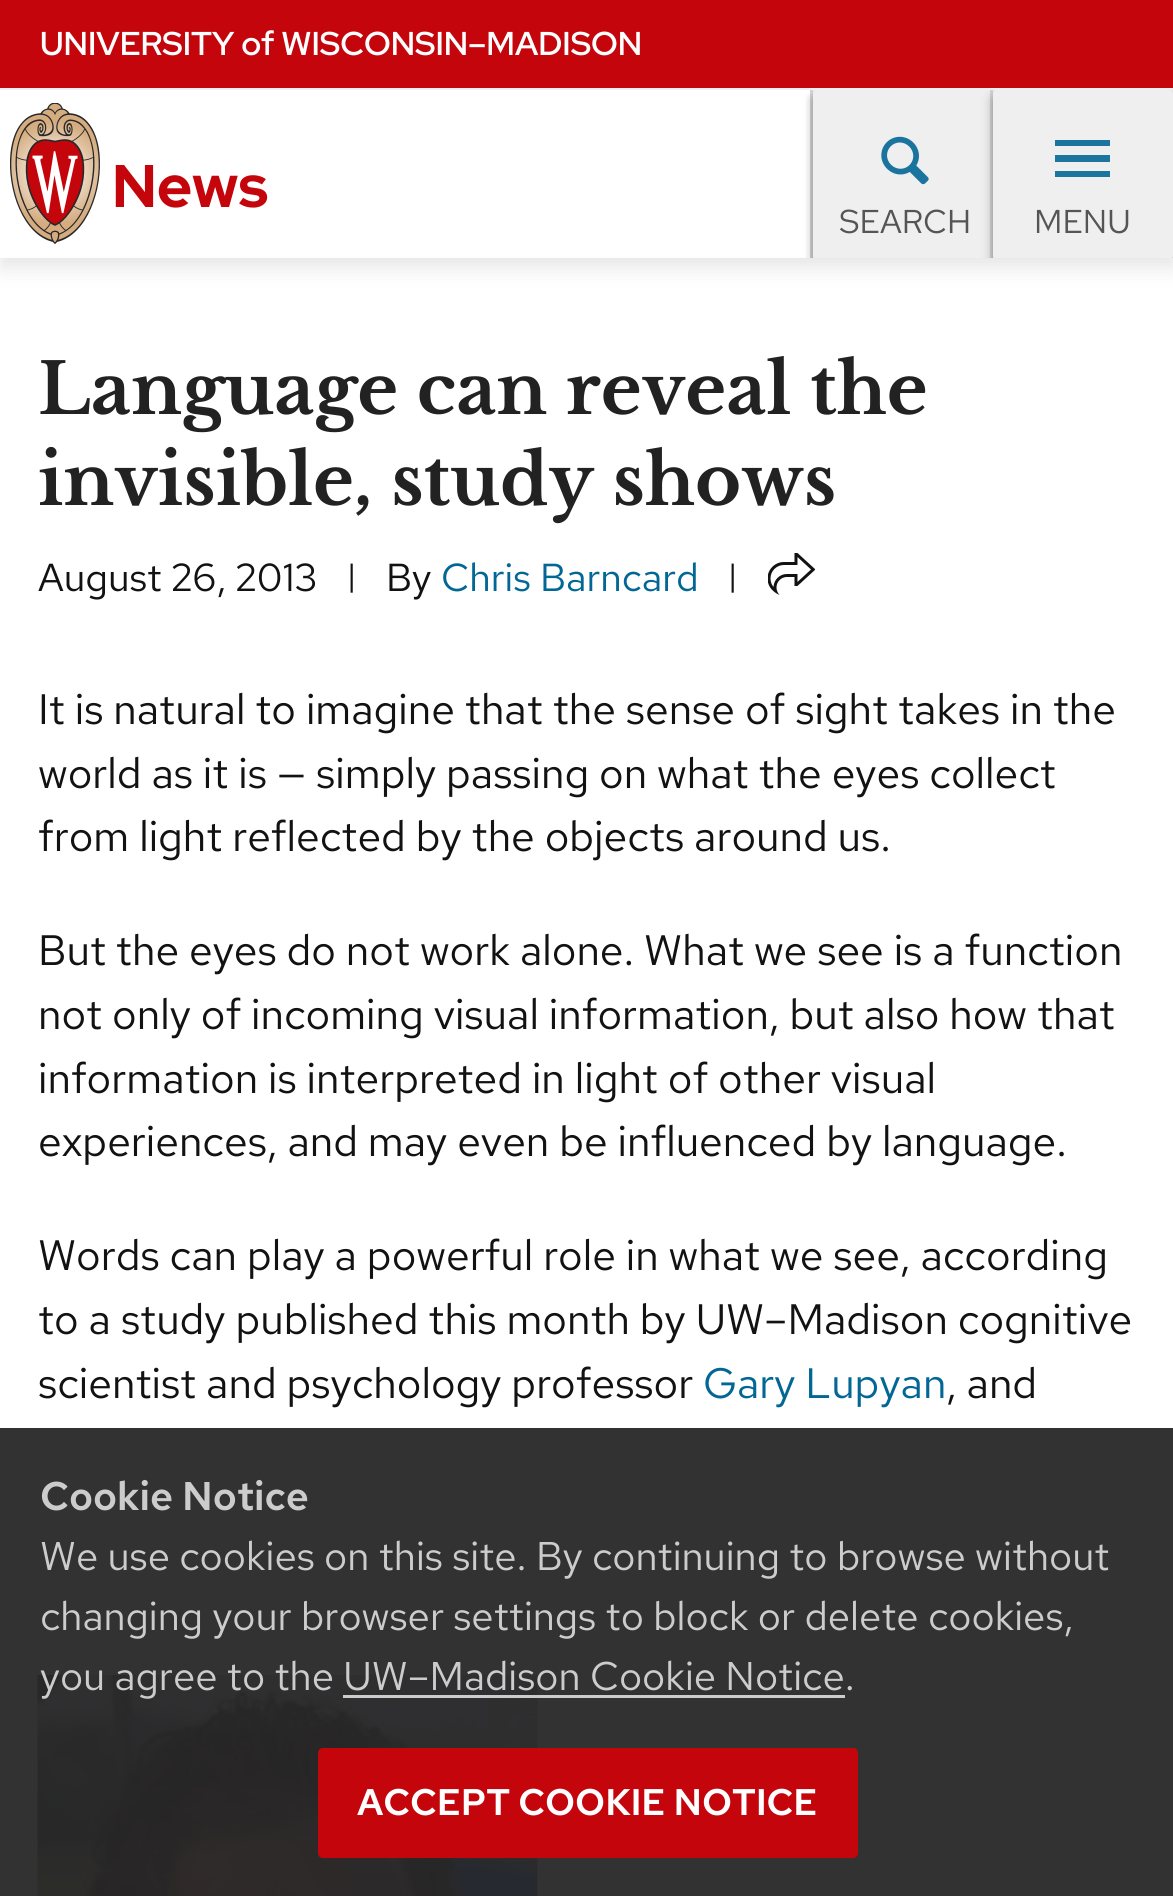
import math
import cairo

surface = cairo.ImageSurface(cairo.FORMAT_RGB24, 1173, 1896)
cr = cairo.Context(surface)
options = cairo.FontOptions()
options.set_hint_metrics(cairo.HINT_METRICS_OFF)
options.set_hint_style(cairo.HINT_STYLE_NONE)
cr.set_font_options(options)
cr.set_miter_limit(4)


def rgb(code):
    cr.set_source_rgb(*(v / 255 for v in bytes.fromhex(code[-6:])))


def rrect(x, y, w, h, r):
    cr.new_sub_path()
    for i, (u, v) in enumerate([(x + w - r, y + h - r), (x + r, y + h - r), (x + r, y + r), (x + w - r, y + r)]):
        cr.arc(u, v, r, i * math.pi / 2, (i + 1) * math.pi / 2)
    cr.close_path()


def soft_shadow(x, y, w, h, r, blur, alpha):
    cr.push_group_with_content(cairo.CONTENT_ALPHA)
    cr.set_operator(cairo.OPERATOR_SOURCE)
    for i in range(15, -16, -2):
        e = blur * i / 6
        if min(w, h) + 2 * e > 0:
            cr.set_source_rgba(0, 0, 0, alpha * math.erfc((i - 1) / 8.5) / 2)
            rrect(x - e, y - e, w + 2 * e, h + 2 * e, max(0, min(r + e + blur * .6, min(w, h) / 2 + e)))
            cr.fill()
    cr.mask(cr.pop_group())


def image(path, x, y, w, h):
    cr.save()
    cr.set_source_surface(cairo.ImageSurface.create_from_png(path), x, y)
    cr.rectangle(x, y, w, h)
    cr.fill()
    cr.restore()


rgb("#ffffff")
cr.paint()
for x, y, w, h, color in [
    (0, 1428, 1173, 468, "#333233"),
    (0, 0, 1173, 88, "#c5050c"),
    (0, 88, 1173, 2, "#f3f3f3"),
]:
    rgb(color)
    cr.rectangle(x, y, w, h)
    cr.fill()
rgb("#000000")
soft_shadow(0, 100, 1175, 168, 0, 10, 0.1)
rgb("#ffffff")
cr.rectangle(0, 90, 810, 168)
cr.fill()
image("img/1.png", 10, 103, 90, 141)
cr.save()
cr.rectangle(0, 90, 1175, 168)
cr.clip()
cr.new_path()
cr.move_to(635, 259)
cr.line_to(995, 259)
rgb("#f3f3f3")
cr.set_line_width(2.5)
cr.set_dash([2.5, 2.5])
cr.stroke()
cr.restore()
rgb("#efefef")
cr.rectangle(813, 90, 177, 168)
cr.fill()
rgb("#d5d5d5")
cr.rectangle(810, 90, 3, 168)
cr.fill()
cr.save()
cr.rectangle(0, 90, 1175, 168)
cr.clip()
cr.rectangle(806, 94, 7, 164)
cr.clip()
rgb("#000000")
soft_shadow(813, 95, 180, 170, 5, 7.5, 0.12)
cr.restore()
cr.save()
cr.rectangle(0, 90, 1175, 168)
cr.clip()
cr.set_fill_rule(cairo.FILL_RULE_EVEN_ODD)
cr.new_path()
cr.move_to(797, 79)
cr.line_to(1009, 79)
cr.line_to(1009, 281)
cr.line_to(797, 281)
cr.close_path()
cr.move_to(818, 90)
cr.line_to(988, 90)
cr.curve_to(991, 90, 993, 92, 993, 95)
cr.line_to(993, 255)
cr.curve_to(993, 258, 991, 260, 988, 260)
cr.line_to(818, 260)
cr.curve_to(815, 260, 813, 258, 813, 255)
cr.line_to(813, 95)
cr.curve_to(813, 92, 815, 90, 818, 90)
cr.close_path()
cr.clip()
rgb("#000000")
soft_shadow(813, 95, 180, 170, 5, 5, 0.24)
cr.restore()
image("img/2.png", 881, 136, 48, 49)
rgb("#efefef")
cr.rectangle(993, 90, 180, 168)
cr.fill()
rgb("#d5d5d5")
cr.rectangle(990, 90, 3, 168)
cr.fill()
cr.save()
cr.rectangle(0, 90, 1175, 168)
cr.clip()
cr.set_fill_rule(cairo.FILL_RULE_EVEN_ODD)
cr.new_path()
cr.move_to(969, 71)
cr.line_to(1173, 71)
cr.line_to(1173, 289)
cr.line_to(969, 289)
cr.close_path()
cr.move_to(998, 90)
cr.line_to(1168, 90)
cr.curve_to(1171, 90, 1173, 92, 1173, 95)
cr.line_to(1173, 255)
cr.curve_to(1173, 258, 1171, 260, 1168, 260)
cr.line_to(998, 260)
cr.curve_to(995, 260, 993, 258, 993, 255)
cr.line_to(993, 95)
cr.curve_to(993, 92, 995, 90, 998, 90)
cr.close_path()
cr.clip()
rgb("#000000")
soft_shadow(993, 95, 180, 170, 5, 7.5, 0.12)
cr.restore()
cr.save()
cr.rectangle(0, 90, 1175, 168)
cr.clip()
cr.set_fill_rule(cairo.FILL_RULE_EVEN_ODD)
cr.new_path()
cr.move_to(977, 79)
cr.line_to(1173, 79)
cr.line_to(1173, 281)
cr.line_to(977, 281)
cr.close_path()
cr.move_to(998, 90)
cr.line_to(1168, 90)
cr.curve_to(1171, 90, 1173, 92, 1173, 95)
cr.line_to(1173, 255)
cr.curve_to(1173, 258, 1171, 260, 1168, 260)
cr.line_to(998, 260)
cr.curve_to(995, 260, 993, 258, 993, 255)
cr.line_to(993, 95)
cr.curve_to(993, 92, 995, 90, 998, 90)
cr.close_path()
cr.clip()
rgb("#000000")
soft_shadow(993, 95, 180, 170, 5, 5, 0.24)
cr.restore()
for x, y, w, h, color in [
    (1055, 140, 55, 6, "#1b759f"),
    (1055, 155, 55, 7, "#1b759f"),
    (1055, 171, 55, 6, "#1b759f"),
]:
    rgb(color)
    cr.rectangle(x, y, w, h)
    cr.fill()
cr.save()
cr.rectangle(0, 90, 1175, 168)
cr.clip()
cr.new_path()
cr.move_to(-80, 259)
cr.line_to(302.5, 259)
rgb("#f3f3f3")
cr.set_line_width(2.5)
cr.set_dash([2.5, 2.5])
cr.stroke()
cr.new_path()
cr.move_to(302.5, 259)
cr.line_to(635, 259)
cr.stroke()
cr.restore()
image("img/3.png", 768, 553, 47, 42)
image("img/4.png", 37, 1675, 501, 221)
rgb("#cccccc")
cr.rectangle(343, 1695, 502, 3)
cr.fill()
rgb("#c5050c")
rrect(318, 1748, 540, 110, 5)
cr.fill()
cr.select_font_face("Red Hat Display SemiBold")
cr.set_font_size(33)
rgb("#ffffff")
cr.move_to(40, 55)
cr.show_text("UNIVERSITY of WISCONSIN–MADISON")
cr.select_font_face("Red Hat Display ExtraBold")
cr.set_font_size(60)
rgb("#c5050c")
cr.move_to(112, 207)
cr.show_text("News")
cr.select_font_face("Red Hat Text")
cr.set_font_size(33)
rgb("#555555")
cr.move_to(839, 233)
cr.show_text("SEARCH")
cr.move_to(1034, 233)
cr.show_text("MENU")
cr.select_font_face("Libre Baskerville", cairo.FONT_SLANT_NORMAL, cairo.FONT_WEIGHT_BOLD)
cr.set_font_size(70)
rgb("#222222")
cr.move_to(38, 414)
cr.show_text("Language can reveal the")
cr.move_to(38, 505)
cr.show_text("invisible, study shows")
cr.select_font_face("Red Hat Text")
cr.set_font_size(39)
rgb("#121212")
cr.move_to(38, 591)
cr.show_text("August 26, 2013")
cr.set_font_size(32)
cr.move_to(347, 586)
cr.show_text("|")
cr.set_font_size(39)
cr.move_to(386, 591)
cr.show_text("By")
rgb("#036796")
cr.move_to(441, 591)
cr.show_text("Chris Barncard")
cr.set_font_size(32)
rgb("#121212")
cr.move_to(728, 586)
cr.show_text("|")
cr.set_font_size(42.5)
for x, y, s in [
    (38, 724, "It is natural to imagine that the sense of sight takes in the"),
    (38, 788, "world as it is — simply passing on what the eyes collect"),
    (38, 851, "from light reflected by the objects around us."),
    (38, 965, "But the eyes do not work alone. What we see is a function"),
    (38, 1029, "not only of incoming visual information, but also how that"),
    (38, 1093, "information is interpreted in light of other visual"),
    (38, 1156, "experiences, and may even be influenced by language."),
    (38, 1270, "Words can play a powerful role in what we see, according"),
    (38, 1334, "to a study published this month by UW–Madison cognitive"),
    (38, 1398, "scientist and psychology professor"),
]:
    cr.move_to(x, y)
    cr.show_text(s)
rgb("#036796")
cr.move_to(703, 1398)
cr.show_text("Gary Lupyan")
rgb("#121212")
cr.move_to(946, 1398)
cr.show_text(", and")
cr.select_font_face("Red Hat Text SemiBold")
cr.set_font_size(40)
rgb("#cccccc")
cr.move_to(40, 1510)
cr.show_text("Cookie Notice")
cr.select_font_face("Red Hat Text")
for x, y, s in [
    (40, 1570, "We use cookies on this site. By continuing to browse without"),
    (40, 1630, "changing your browser settings to block or delete cookies,"),
    (40, 1690, "you agree to the UW–Madison Cookie Notice."),
]:
    cr.move_to(x, y)
    cr.show_text(s)
cr.select_font_face("Red Hat Text SemiBold")
cr.set_font_size(37)
rgb("#ffffff")
cr.move_to(357, 1815)
cr.show_text("ACCEPT COOKIE NOTICE")
surface.write_to_png("page.png")
